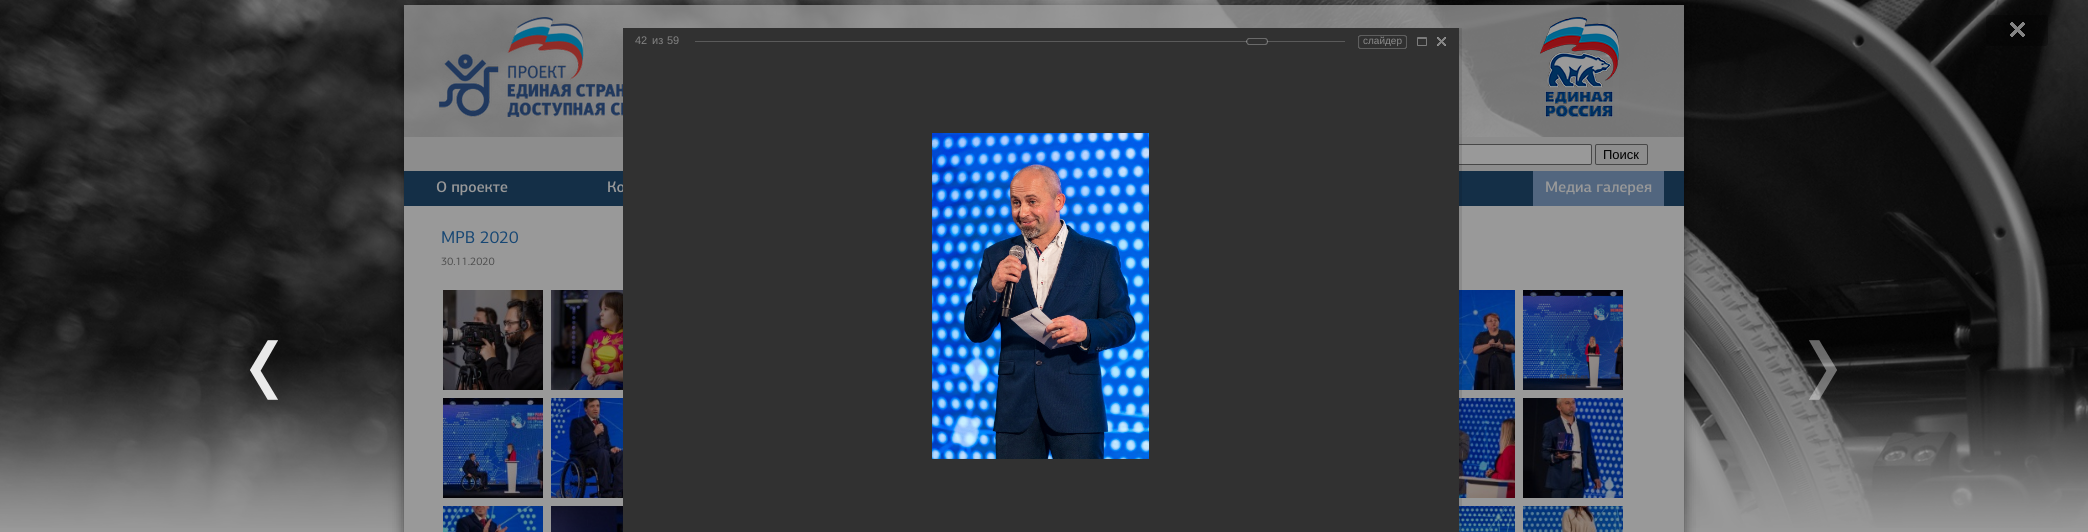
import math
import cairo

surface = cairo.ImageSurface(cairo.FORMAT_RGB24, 2088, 532)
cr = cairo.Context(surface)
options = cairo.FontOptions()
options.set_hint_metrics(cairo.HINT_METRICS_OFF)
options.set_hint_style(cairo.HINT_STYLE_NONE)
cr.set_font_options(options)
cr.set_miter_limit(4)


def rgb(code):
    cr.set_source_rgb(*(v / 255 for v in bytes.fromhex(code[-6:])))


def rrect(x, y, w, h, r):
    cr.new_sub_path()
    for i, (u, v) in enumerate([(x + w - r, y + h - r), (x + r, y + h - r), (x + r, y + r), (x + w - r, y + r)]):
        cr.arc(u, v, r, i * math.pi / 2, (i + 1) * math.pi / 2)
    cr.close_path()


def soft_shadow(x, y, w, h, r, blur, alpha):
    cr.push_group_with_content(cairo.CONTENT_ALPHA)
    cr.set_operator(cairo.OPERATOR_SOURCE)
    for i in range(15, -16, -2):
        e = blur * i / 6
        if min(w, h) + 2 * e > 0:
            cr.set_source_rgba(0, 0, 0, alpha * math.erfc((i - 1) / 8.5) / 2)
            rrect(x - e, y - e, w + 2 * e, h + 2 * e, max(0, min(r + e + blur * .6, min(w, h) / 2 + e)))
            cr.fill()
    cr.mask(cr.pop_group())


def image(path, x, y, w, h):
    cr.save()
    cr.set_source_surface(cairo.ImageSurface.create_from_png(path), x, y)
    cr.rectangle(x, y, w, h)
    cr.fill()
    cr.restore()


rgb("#999999")
cr.paint()
image("img/1.png", 0, 0, 2088, 528)
cr.save()
cr.set_fill_rule(cairo.FILL_RULE_EVEN_ODD)
cr.new_path()
cr.move_to(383, 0)
cr.line_to(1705, 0)
cr.line_to(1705, 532)
cr.line_to(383, 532)
cr.close_path()
cr.move_to(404, 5)
cr.line_to(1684, 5)
cr.line_to(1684, 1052)
cr.line_to(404, 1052)
cr.close_path()
cr.clip()
rgb("#000000")
soft_shadow(404, 11, 1280, 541, 0, 6.5, 0.5)
cr.restore()
cr.set_source_rgba(0.6, 0.6, 0.6, 0.75)
cr.rectangle(404, 5, 1280, 132)
cr.fill()
rgb("#8d8d8d")
cr.rectangle(404, 137, 1280, 34)
cr.fill()
rgb("#999999")
rrect(1282.5, 144.5, 309, 20, 1.5)
cr.fill_preserve()
rgb("#474747")
cr.set_line_width(1)
cr.stroke()
rgb("#142f47")
cr.rectangle(404, 171, 1280, 35)
cr.fill()
rgb("#999999")
cr.rectangle(404, 206, 1280, 322)
cr.fill()
image("img/20.png", 1459, 290, 56, 100)
image("img/24.png", 1459, 398, 56, 100)
image("img/28.png", 1459, 506, 56, 26)
cr.set_source_rgba(0, 0, 0, 0.1)
cr.rectangle(1459, 28, 3, 504)
cr.fill()
rgb("#313131")
cr.rectangle(623, 28, 836, 504)
cr.fill()
rgb("#5a5a5a")
cr.rectangle(695, 41, 650, 1)
cr.fill()
image("img/2.png", 1246, 38, 22, 7)
image("img/3.png", 1358, 35, 46, 14)
image("img/4.png", 1404, 35, 3, 14)
image("img/5.png", 1417, 37, 10, 9)
image("img/6.png", 1437, 37, 9, 9)
image("img/7.png", 932, 133, 218, 326)
image("img/8.png", 1986, 15, 62, 31)
image("img/9.png", 1809, 340, 28, 60)
image("img/10.png", 250, 340, 28, 60)
image("img/11.png", 439, 17, 184, 100)
image("img/12.png", 1540, 17, 79, 100)
rrect(1595.5, 144.5, 52, 20, 1.5)
rgb("#474747")
cr.stroke()
image("img/13.png", 436, 181, 72, 15)
image("img/14.png", 608, 181, 15, 12)
rgb("#52667f")
cr.rectangle(1533, 171, 131, 35)
cr.fill()
image("img/15.png", 1546, 181, 106, 15)
image("img/16.png", 442, 231, 76, 13)
image("img/17.png", 441, 257, 54, 9)
image("img/18.png", 443, 290, 100, 100)
image("img/19.png", 551, 290, 72, 100)
image("img/21.png", 1523, 290, 100, 100)
image("img/22.png", 443, 398, 100, 100)
image("img/23.png", 551, 398, 72, 100)
image("img/25.png", 1523, 398, 100, 100)
image("img/26.png", 443, 506, 100, 26)
image("img/27.png", 551, 506, 72, 26)
image("img/29.png", 1523, 506, 100, 26)
cr.select_font_face("Liberation Sans")
cr.set_font_size(11)
rgb("#838383")
for x, y, s in [
    (635, 44, "42"),
    (652, 44, "из"),
    (667, 44, "59"),
]:
    cr.move_to(x, y)
    cr.show_text(s)
cr.set_font_size(10)
rgb("#8c8c8c")
cr.move_to(1363, 44)
cr.show_text("слайдер")
cr.set_font_size(13)
rgb("#000000")
cr.move_to(1603, 159)
cr.show_text("Поиск")
surface.write_to_png("page.png")
